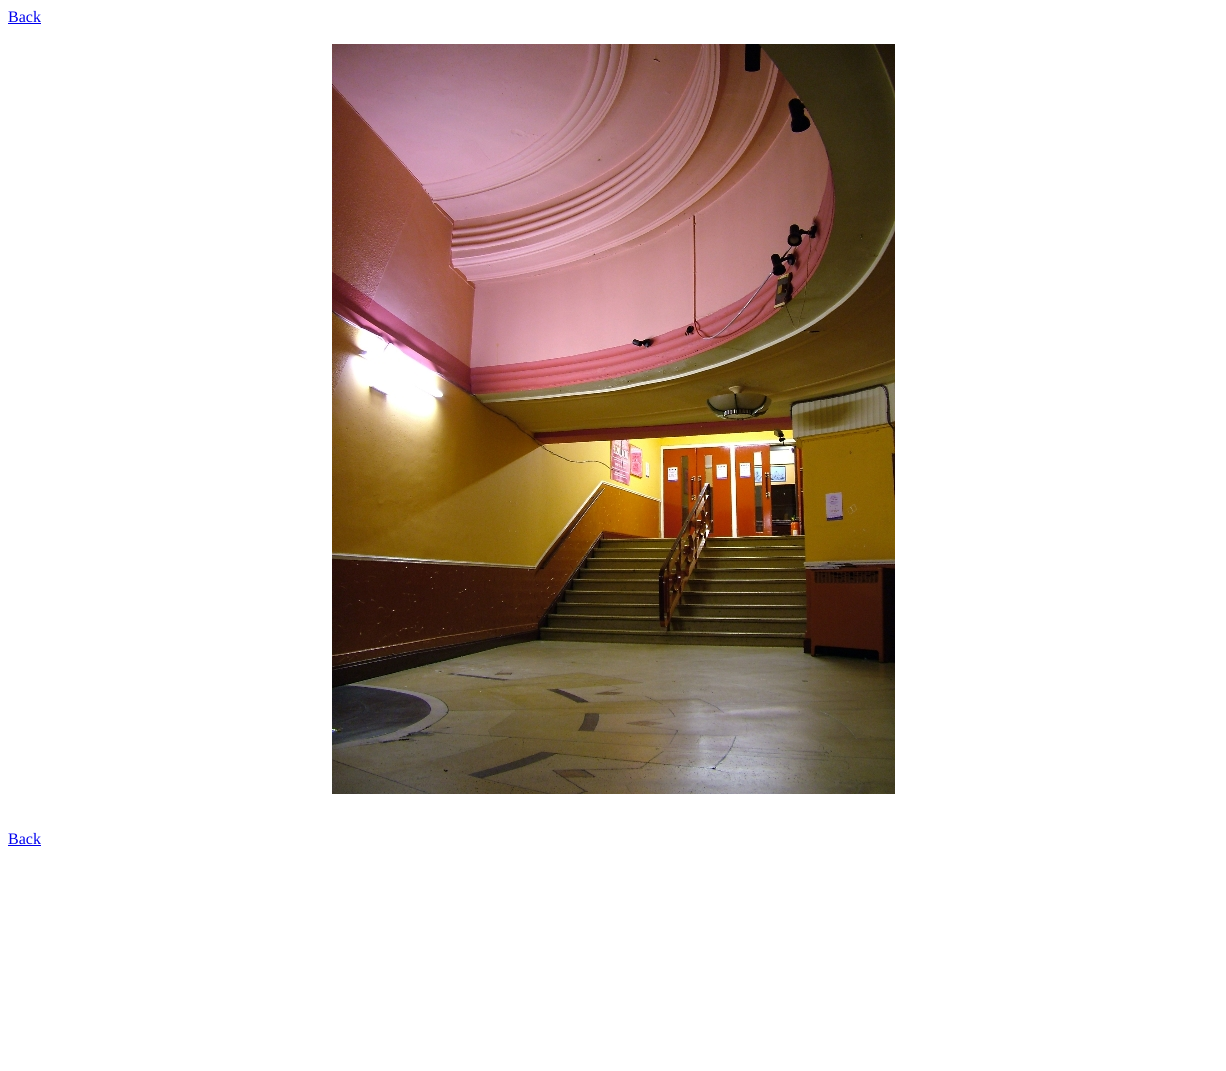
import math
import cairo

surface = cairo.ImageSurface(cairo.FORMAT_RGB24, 1226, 1071)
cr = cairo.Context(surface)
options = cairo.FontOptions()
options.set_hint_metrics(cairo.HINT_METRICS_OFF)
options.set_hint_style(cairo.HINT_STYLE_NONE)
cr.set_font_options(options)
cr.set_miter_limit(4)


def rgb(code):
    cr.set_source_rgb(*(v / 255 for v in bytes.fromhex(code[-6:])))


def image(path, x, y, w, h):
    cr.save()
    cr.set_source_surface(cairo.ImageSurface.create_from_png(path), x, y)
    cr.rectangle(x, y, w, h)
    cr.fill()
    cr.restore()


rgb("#ffffff")
cr.paint()
rgb("#0000ee")
cr.rectangle(8, 23, 33, 1)
cr.fill()
image("img/1.png", 332, 44, 563, 750)
cr.rectangle(8, 845, 33, 1)
cr.fill()
cr.select_font_face("Liberation Serif")
cr.set_font_size(16)
cr.move_to(8, 22)
cr.show_text("Back")
cr.move_to(8, 844)
cr.show_text("Back")
surface.write_to_png("page.png")
